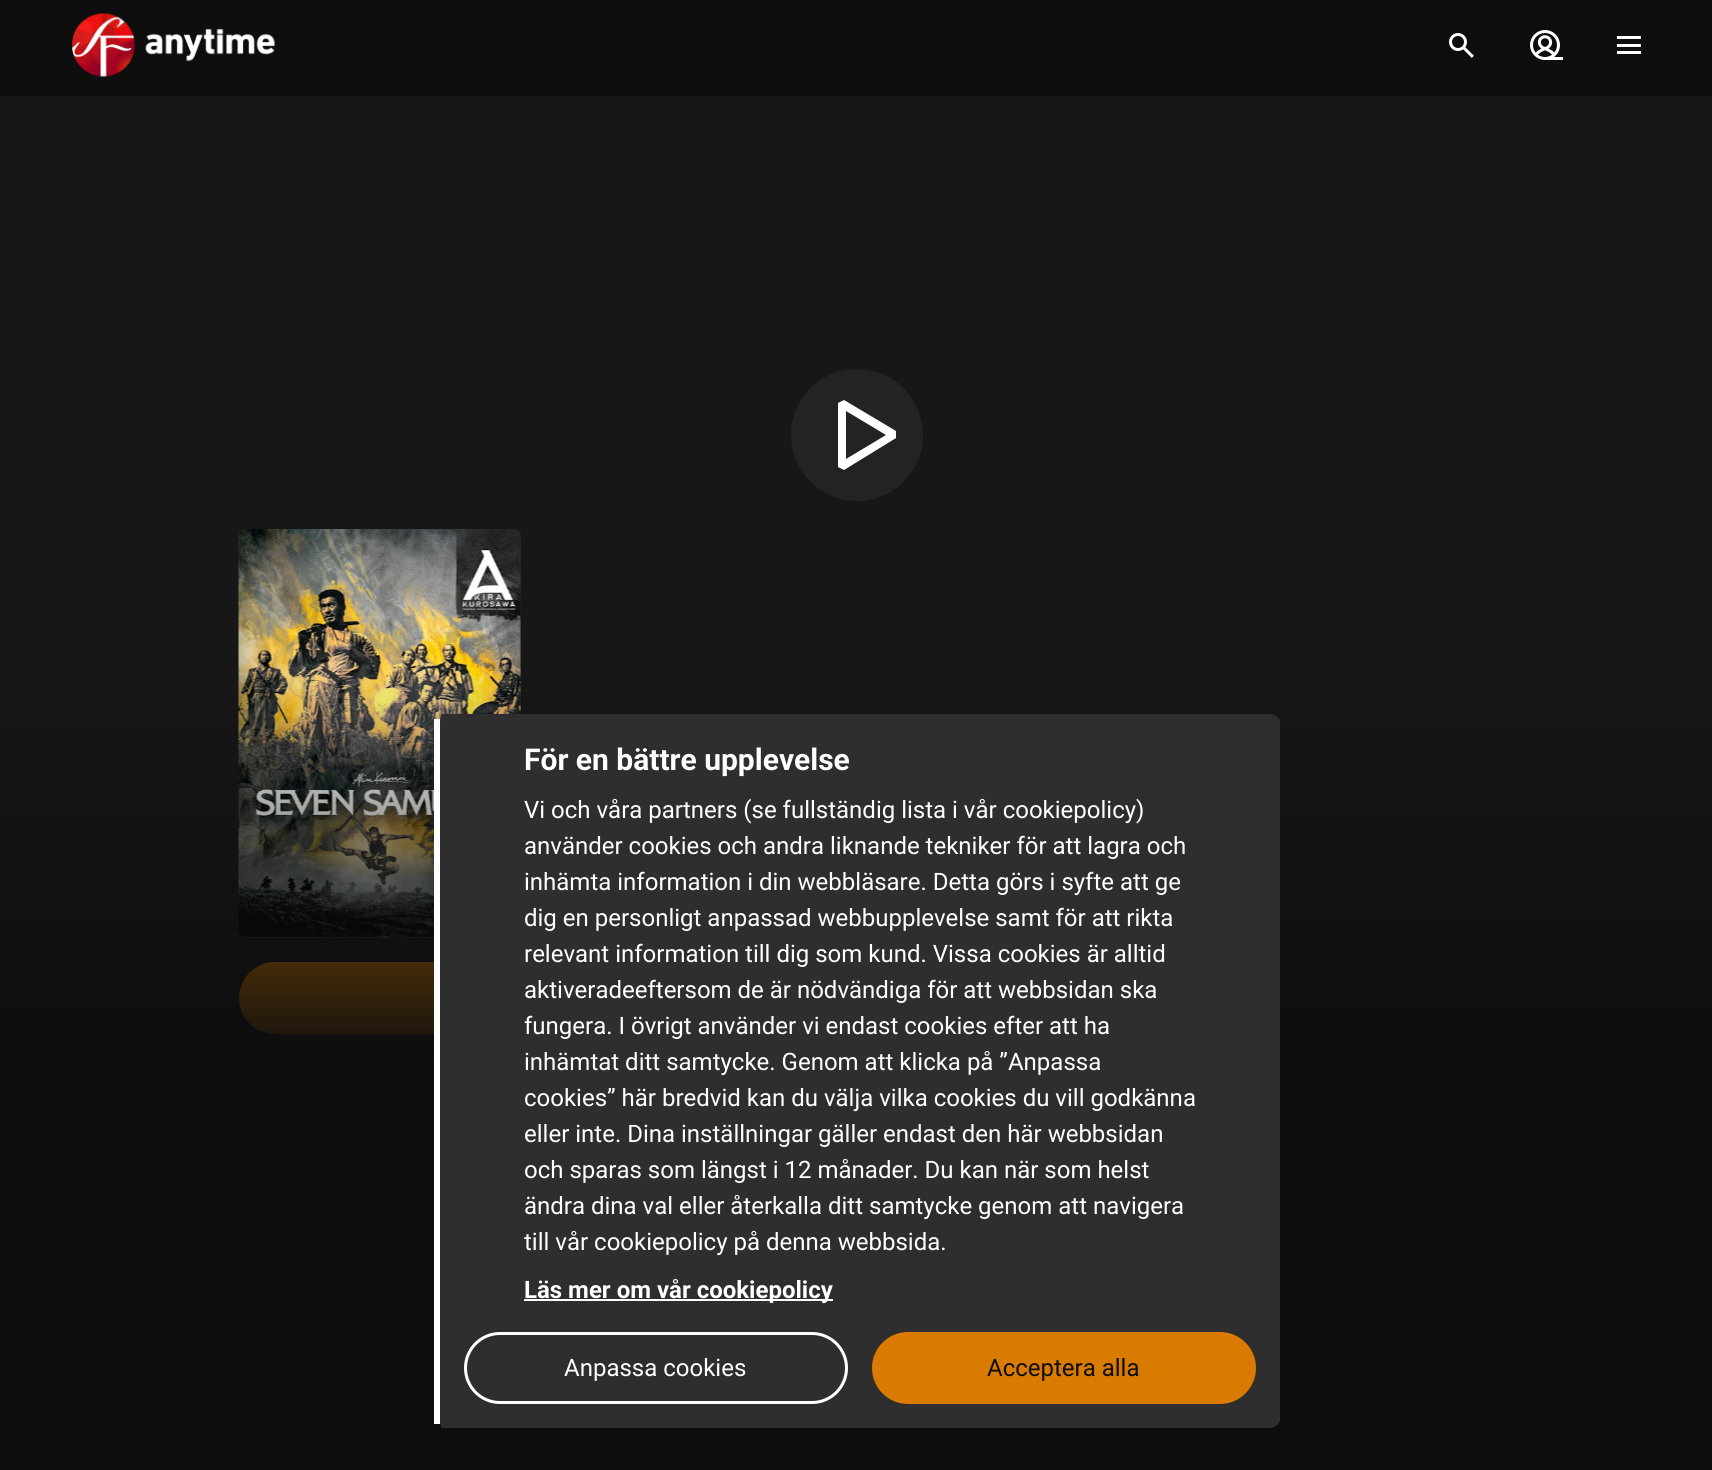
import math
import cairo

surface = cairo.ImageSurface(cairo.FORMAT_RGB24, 1712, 1470)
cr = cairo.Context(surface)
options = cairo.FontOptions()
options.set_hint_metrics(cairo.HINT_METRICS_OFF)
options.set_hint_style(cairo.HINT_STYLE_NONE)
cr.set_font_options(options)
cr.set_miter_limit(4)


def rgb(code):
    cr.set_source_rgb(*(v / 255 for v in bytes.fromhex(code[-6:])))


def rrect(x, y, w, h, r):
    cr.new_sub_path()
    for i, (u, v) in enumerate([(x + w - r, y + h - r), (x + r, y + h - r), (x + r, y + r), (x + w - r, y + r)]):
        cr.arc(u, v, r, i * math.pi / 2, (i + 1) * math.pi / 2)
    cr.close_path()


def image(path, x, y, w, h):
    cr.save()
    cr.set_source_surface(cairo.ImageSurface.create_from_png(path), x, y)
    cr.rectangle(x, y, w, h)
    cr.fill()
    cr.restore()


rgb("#171717")
cr.paint()
rgb("#0e0e0e")
cr.rectangle(0, 50, 1712, 46)
cr.fill()
gradient = cairo.LinearGradient(857, 50, 857, -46)
gradient.add_color_stop_rgba(0, 0.055, 0.055, 0.055, 1)
gradient.add_color_stop_rgba(1, 0.051, 0.051, 0.051, 1)
cr.set_source(gradient)
cr.rectangle(0, 0, 1712, 50)
cr.fill()
image("img/1.png", 72, 13, 203, 64)
image("img/2.png", 1449, 33, 25, 25)
image("img/3.png", 1530, 30, 33, 30)
for x, y, w, h, color in [
    (1617, 51, 24, 3, "#ffffff"),
    (1617, 36, 24, 3, "#ffffff"),
    (1617, 44, 24, 3, "#ffffff"),
]:
    rgb(color)
    cr.rectangle(x, y, w, h)
    cr.fill()
rgb("#232323")
cr.arc(857, 435, 66, 0, 2 * math.pi)
cr.fill()
rgb("#ffffff")
cr.new_path()
cr.move_to(844, 470)
cr.line_to(838, 467)
cr.line_to(838, 403)
cr.line_to(844, 400)
cr.line_to(896, 431)
cr.line_to(896, 438)
cr.close_path()
cr.move_to(846, 411)
cr.line_to(846, 459)
cr.line_to(886, 435)
cr.close_path()
cr.fill()
rgb("#242424")
rrect(239, 530, 282, 408, 6)
cr.fill()
image("img/4.png", 238, 529, 283, 408)
rgb("#d87b00")
rrect(240.5, 963.5, 279, 69, 34.5)
cr.fill_preserve()
cr.set_line_width(3)
cr.stroke()
gradient = cairo.LinearGradient(857, 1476, 857, 666)
gradient.add_color_stop_rgba(0, 0.051, 0.051, 0.051, 1)
gradient.add_color_stop_rgba(0.5, 0.051, 0.051, 0.051, 1)
gradient.add_color_stop_rgba(1, 0.051, 0.051, 0.051, 0)
cr.set_source(gradient)
cr.rectangle(0, 675, 1712, 795)
cr.fill()
rgb("#2e2e2e")
cr.new_path()
cr.move_to(442, 714)
cr.line_to(1270, 714)
cr.curve_to(1275, 714, 1280, 718, 1280, 723)
cr.line_to(1280, 1419)
cr.curve_to(1280, 1424, 1275, 1428, 1270, 1428)
cr.line_to(442, 1428)
cr.curve_to(441, 1428, 440, 1424, 440, 1419)
cr.line_to(440, 723)
cr.curve_to(440, 718, 441, 714, 442, 714)
cr.close_path()
cr.fill()
rgb("#ffffff")
cr.rectangle(434, 719, 6, 705)
cr.fill()
cr.rectangle(524, 1299, 309, 2)
cr.fill()
rrect(465.5, 1333.5, 381, 69, 34.5)
cr.stroke()
rgb("#d87b00")
rrect(873.5, 1333.5, 381, 69, 34.5)
cr.fill_preserve()
cr.stroke()
cr.select_font_face("Roboto", cairo.FONT_SLANT_NORMAL, cairo.FONT_WEIGHT_BOLD)
cr.set_font_size(30)
rgb("#ffffff")
cr.move_to(524, 770)
cr.show_text("För en bättre upplevelse")
cr.select_font_face("Roboto")
cr.set_font_size(24)
for x, y, s in [
    (524, 818, "Vi och våra partners (se fullständig lista i vår cookiepolicy)"),
    (524, 854, "använder cookies och andra liknande tekniker för att lagra och"),
    (524, 890, "inhämta information i din webbläsare. Detta görs i syfte att ge"),
    (524, 926, "dig en personligt anpassad webbupplevelse samt för att rikta"),
    (524, 962, "relevant information till dig som kund. Vissa cookies är alltid"),
    (524, 998, "aktiveradeeftersom de är nödvändiga för att webbsidan ska"),
    (524, 1034, "fungera. I övrigt använder vi endast cookies efter att ha"),
    (524, 1070, "inhämtat ditt samtycke. Genom att klicka på ”Anpassa"),
    (524, 1106, "cookies” här bredvid kan du välja vilka cookies du vill godkänna"),
    (524, 1142, "eller inte. Dina inställningar gäller endast den här webbsidan"),
    (524, 1178, "och sparas som längst i 12 månader. Du kan när som helst"),
    (524, 1214, "ändra dina val eller återkalla ditt samtycke genom att navigera"),
    (524, 1250, "till vår cookiepolicy på denna webbsida."),
]:
    cr.move_to(x, y)
    cr.show_text(s)
cr.select_font_face("Roboto", cairo.FONT_SLANT_NORMAL, cairo.FONT_WEIGHT_BOLD)
cr.move_to(524, 1298)
cr.show_text("Läs mer om vår cookiepolicy")
cr.select_font_face("Roboto")
cr.move_to(564, 1376)
cr.show_text("Anpassa cookies")
rgb("#0d0d0d")
cr.move_to(987, 1376)
cr.show_text("Acceptera alla")
surface.write_to_png("page.png")
